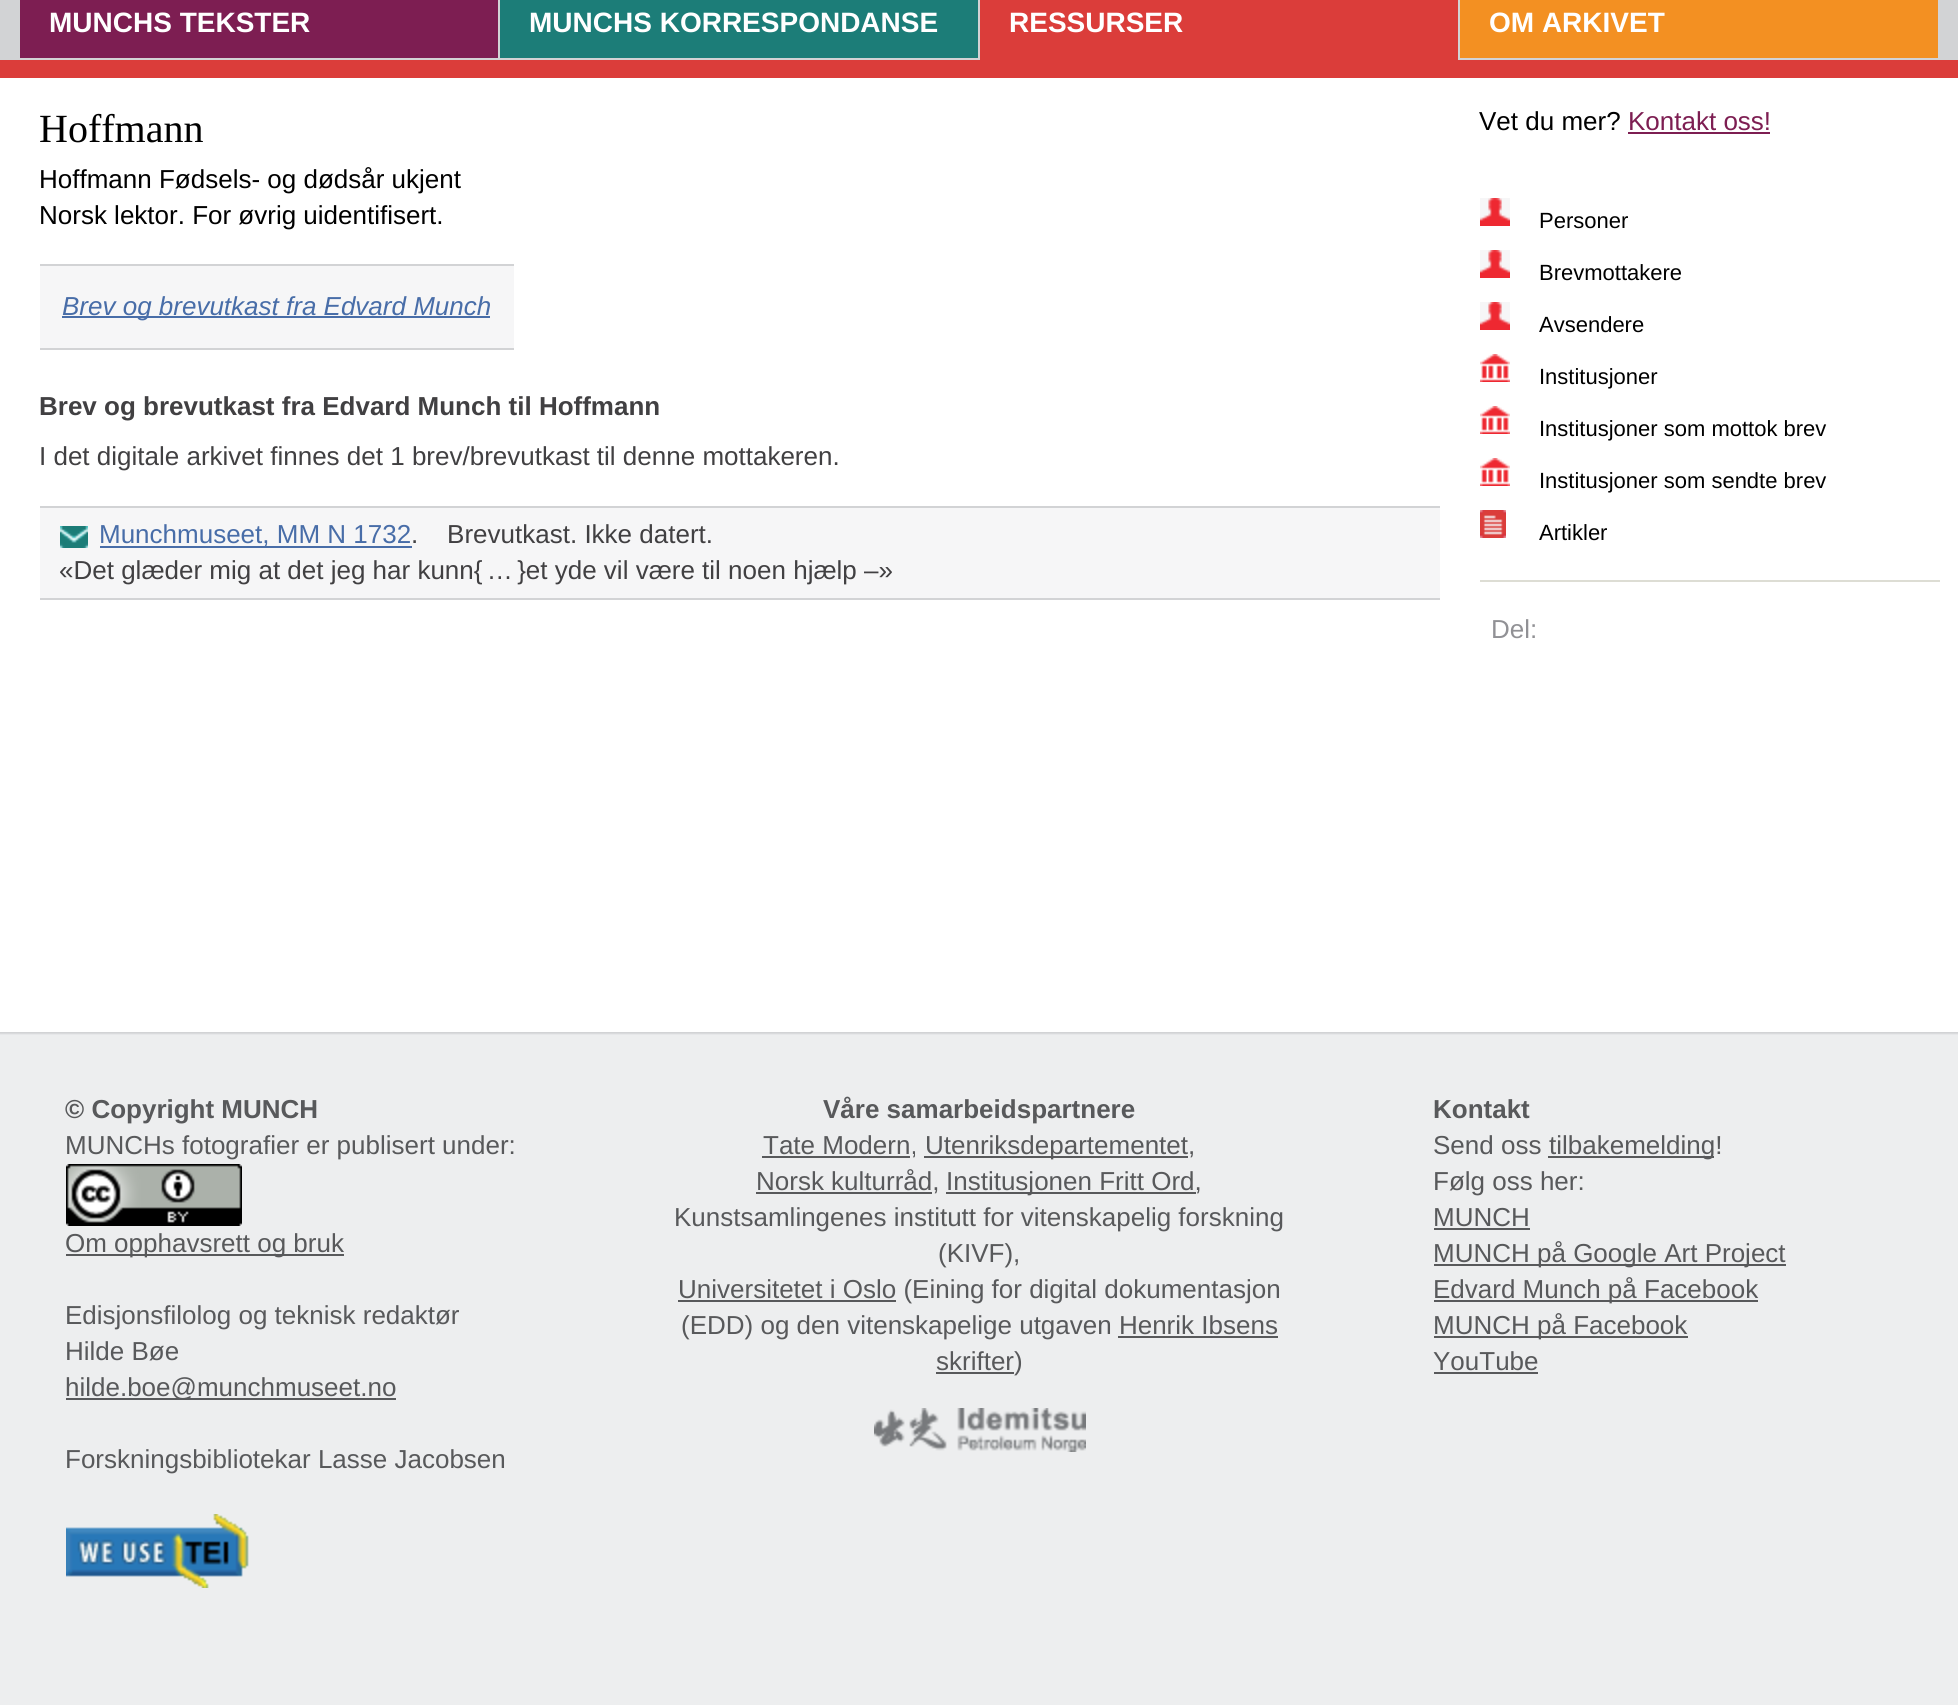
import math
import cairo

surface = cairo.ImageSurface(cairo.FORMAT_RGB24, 1958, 1705)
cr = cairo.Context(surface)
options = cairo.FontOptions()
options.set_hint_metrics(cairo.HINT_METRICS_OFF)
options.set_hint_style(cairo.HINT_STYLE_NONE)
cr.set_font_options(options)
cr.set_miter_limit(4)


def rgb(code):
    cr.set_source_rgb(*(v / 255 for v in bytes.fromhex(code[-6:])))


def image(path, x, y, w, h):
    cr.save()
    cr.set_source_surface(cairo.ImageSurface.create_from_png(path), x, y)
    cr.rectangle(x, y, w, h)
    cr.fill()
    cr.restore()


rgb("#ffffff")
cr.paint()
for x, y, w, h, color in [
    (0, 0, 1958, 60, "#d2d3d5"),
    (0, 60, 1958, 18, "#db3d3a"),
    (20, 0, 478, 58, "#7d1e52"),
    (500, 0, 478, 58, "#1c7d78"),
    (980, 0, 478, 60, "#db3d3a"),
    (1460, 0, 478, 58, "#f39022"),
    (40, 266, 474, 82, "#f6f6f7"),
    (40, 264, 474, 2, "#d2d3d5"),
    (40, 348, 474, 2, "#d2d3d5"),
    (62, 316, 428, 2, "#486da8"),
    (40, 598, 1400, 2, "#d2d3d5"),
    (40, 508, 1400, 90, "#f6f6f7"),
    (40, 506, 1400, 2, "#d2d3d5"),
]:
    rgb(color)
    cr.rectangle(x, y, w, h)
    cr.fill()
image("img/1.png", 60, 526, 28, 22)
rgb("#486da8")
cr.rectangle(100, 546, 312, 2)
cr.fill()
rgb("#7d1e52")
cr.rectangle(1628, 132, 142, 2)
cr.fill()
image("img/2.png", 1480, 198, 30, 28)
image("img/2.png", 1480, 250, 30, 28)
image("img/2.png", 1480, 302, 30, 28)
image("img/3.png", 1480, 354, 30, 28)
image("img/3.png", 1480, 406, 30, 28)
image("img/3.png", 1480, 458, 30, 28)
image("img/4.png", 1480, 510, 26, 28)
rgb("#ddddd4")
cr.rectangle(1480, 580, 460, 2)
cr.fill()
image("img/5.png", 0, 1032, 1958, 673)
image("img/6.png", 66, 1164, 176, 62)
rgb("#58595b")
cr.rectangle(66, 1254, 278, 2)
cr.fill()
cr.rectangle(66, 1398, 330, 2)
cr.fill()
image("img/7.png", 66, 1514, 183, 74)
for x, y, w, h, color in [
    (762, 1156, 148, 2, "#58595b"),
    (924, 1156, 264, 2, "#58595b"),
    (756, 1192, 176, 2, "#58595b"),
    (946, 1192, 250, 2, "#58595b"),
    (678, 1300, 218, 2, "#58595b"),
    (1118, 1336, 160, 2, "#58595b"),
    (936, 1372, 78, 2, "#58595b"),
]:
    rgb(color)
    cr.rectangle(x, y, w, h)
    cr.fill()
image("img/8.png", 874, 1408, 212, 44)
for x, y, w, h, color in [
    (1548, 1156, 166, 2, "#58595b"),
    (1434, 1228, 96, 2, "#58595b"),
    (1434, 1264, 352, 2, "#58595b"),
    (1434, 1300, 324, 2, "#58595b"),
    (1434, 1336, 254, 2, "#58595b"),
    (1434, 1372, 104, 2, "#58595b"),
]:
    rgb(color)
    cr.rectangle(x, y, w, h)
    cr.fill()
cr.select_font_face("Liberation Sans", cairo.FONT_SLANT_NORMAL, cairo.FONT_WEIGHT_BOLD)
cr.set_font_size(28)
rgb("#ffffff")
for x, y, s in [
    (49, 32, "MUNCHS TEKSTER"),
    (529, 32, "MUNCHS KORRESPONDANSE"),
    (1009, 32, "RESSURSER"),
    (1489, 32, "OM ARKIVET"),
]:
    cr.move_to(x, y)
    cr.show_text(s)
cr.select_font_face("Liberation Serif")
cr.set_font_size(40)
rgb("#000000")
cr.move_to(39, 142)
cr.show_text("Hoffmann")
cr.select_font_face("Liberation Sans")
cr.set_font_size(26)
cr.move_to(39, 188)
cr.show_text("Hoffmann Fødsels- og dødsår ukjent")
cr.move_to(39, 224)
cr.show_text("Norsk lektor. For øvrig uidentifisert.")
cr.select_font_face("Liberation Sans", cairo.FONT_SLANT_ITALIC)
rgb("#486da8")
cr.move_to(62, 315)
cr.show_text("Brev og brevutkast fra Edvard Munch")
cr.select_font_face("Liberation Sans", cairo.FONT_SLANT_NORMAL, cairo.FONT_WEIGHT_BOLD)
rgb("#414042")
cr.move_to(39, 415)
cr.show_text("Brev og brevutkast fra Edvard Munch til Hoffmann")
cr.select_font_face("Liberation Sans")
cr.move_to(39, 465)
cr.show_text("I det digitale arkivet finnes det 1 brev/brevutkast til denne mottakeren.")
rgb("#486da8")
cr.move_to(99, 543)
cr.show_text("Munchmuseet, MM N 1732")
rgb("#414042")
cr.move_to(411, 543)
cr.show_text(".    Brevutkast. Ikke datert.")
cr.move_to(59, 579)
cr.show_text("«Det glæder mig at det jeg har kunn{ … }et yde vil være til noen hjælp –»")
rgb("#000000")
cr.move_to(1479, 130)
cr.show_text("Vet du mer?")
rgb("#7d1e52")
cr.move_to(1628, 130)
cr.show_text("Kontakt oss!")
cr.set_font_size(22)
rgb("#000000")
for x, y, s in [
    (1539, 228, "Personer"),
    (1539, 280, "Brevmottakere"),
    (1539, 332, "Avsendere"),
    (1539, 384, "Institusjoner"),
    (1539, 436, "Institusjoner som mottok brev"),
    (1539, 488, "Institusjoner som sendte brev"),
    (1539, 540, "Artikler"),
]:
    cr.move_to(x, y)
    cr.show_text(s)
cr.set_font_size(26)
rgb("#919195")
cr.move_to(1491, 638)
cr.show_text("Del:")
cr.select_font_face("Liberation Sans", cairo.FONT_SLANT_NORMAL, cairo.FONT_WEIGHT_BOLD)
rgb("#58595b")
cr.move_to(65, 1118)
cr.show_text("© Copyright MUNCH")
cr.select_font_face("Liberation Sans")
for x, y, s in [
    (65, 1154, "MUNCHs fotografier er publisert under:"),
    (65, 1252, "Om opphavsrett og bruk"),
    (65, 1324, "Edisjonsfilolog og teknisk redaktør"),
    (65, 1360, "Hilde Bøe"),
    (65, 1396, "hilde.boe@munchmuseet.no"),
    (65, 1468, "Forskningsbibliotekar Lasse Jacobsen"),
]:
    cr.move_to(x, y)
    cr.show_text(s)
cr.select_font_face("Liberation Sans", cairo.FONT_SLANT_NORMAL, cairo.FONT_WEIGHT_BOLD)
cr.move_to(823, 1118)
cr.show_text("Våre samarbeidspartnere")
cr.select_font_face("Liberation Sans")
for x, y, s in [
    (763, 1154, "Tate Modern,"),
    (925, 1154, "Utenriksdepartementet,"),
    (756, 1190, "Norsk kulturråd,"),
    (946, 1190, "Institusjonen Fritt Ord,"),
    (674, 1226, "Kunstsamlingenes institutt for vitenskapelig forskning"),
    (938, 1262, "(KIVF),"),
    (678, 1298, "Universitetet i Oslo (Eining for digital dokumentasjon"),
    (681, 1334, "(EDD) og den vitenskapelige utgaven Henrik Ibsens"),
    (936, 1370, "skrifter)"),
]:
    cr.move_to(x, y)
    cr.show_text(s)
cr.select_font_face("Liberation Sans", cairo.FONT_SLANT_NORMAL, cairo.FONT_WEIGHT_BOLD)
cr.move_to(1433, 1118)
cr.show_text("Kontakt")
cr.select_font_face("Liberation Sans")
for x, y, s in [
    (1433, 1154, "Send oss"),
    (1549, 1154, "tilbakemelding!"),
    (1433, 1190, "Følg oss her:"),
    (1433, 1226, "MUNCH"),
    (1433, 1262, "MUNCH på Google Art Project"),
    (1433, 1298, "Edvard Munch på Facebook"),
    (1433, 1334, "MUNCH på Facebook"),
    (1433, 1370, "YouTube"),
]:
    cr.move_to(x, y)
    cr.show_text(s)
surface.write_to_png("page.png")
